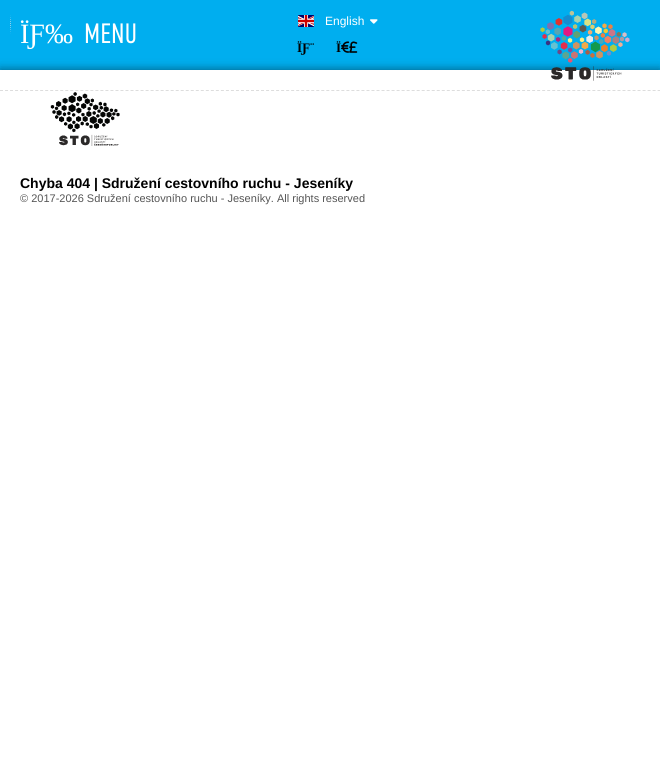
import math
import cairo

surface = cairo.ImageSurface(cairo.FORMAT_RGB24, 660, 777)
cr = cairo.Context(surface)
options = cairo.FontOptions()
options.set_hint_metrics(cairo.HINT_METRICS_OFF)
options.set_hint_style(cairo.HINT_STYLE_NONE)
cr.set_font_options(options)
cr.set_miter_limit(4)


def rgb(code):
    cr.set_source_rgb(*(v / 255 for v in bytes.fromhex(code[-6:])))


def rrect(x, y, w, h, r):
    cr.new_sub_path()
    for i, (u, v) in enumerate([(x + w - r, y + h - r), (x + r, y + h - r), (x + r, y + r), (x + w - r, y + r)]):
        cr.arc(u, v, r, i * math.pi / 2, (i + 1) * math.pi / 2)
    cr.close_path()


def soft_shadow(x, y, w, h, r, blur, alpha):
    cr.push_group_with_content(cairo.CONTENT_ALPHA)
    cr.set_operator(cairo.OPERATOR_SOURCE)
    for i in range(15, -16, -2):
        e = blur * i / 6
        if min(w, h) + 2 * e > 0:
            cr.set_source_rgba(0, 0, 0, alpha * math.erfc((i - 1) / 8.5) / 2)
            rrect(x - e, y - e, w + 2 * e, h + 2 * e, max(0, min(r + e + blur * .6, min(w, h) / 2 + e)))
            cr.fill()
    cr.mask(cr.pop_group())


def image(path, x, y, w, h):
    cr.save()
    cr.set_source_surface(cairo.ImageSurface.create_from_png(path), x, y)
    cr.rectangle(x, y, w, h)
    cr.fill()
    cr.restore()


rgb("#00aeef")
cr.paint()
image("img/1.png", 341, 41, 17, 12)
image("img/2.png", 10, 15, 1, 19)
image("img/3.png", 298, 15, 16, 12)
image("img/4.png", 370, 19, 8, 5)
rgb("#000000")
soft_shadow(0, 70, 660, 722, 0, 5, 0.5)
rgb("#ffffff")
cr.rectangle(0, 70, 660, 707)
cr.fill()
image("img/5.png", 540, 10, 90, 71)
cr.new_path()
cr.move_to(0, 90.5)
cr.line_to(660, 90.5)
rgb("#dddddd")
cr.set_line_width(1)
cr.set_dash([3, 2.02])
cr.stroke()
image("img/6.png", 50, 92, 70, 54)
cr.select_font_face("Liberation Serif")
cr.set_font_size(28)
rgb("#ffffff")
cr.move_to(20, 43)
cr.show_text("ÏƑ‰")
cr.select_font_face("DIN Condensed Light")
cr.move_to(84, 43)
cr.show_text("MENU")
cr.select_font_face("Liberation Serif", cairo.FONT_SLANT_NORMAL, cairo.FONT_WEIGHT_BOLD)
cr.set_font_size(13)
rgb("#000000")
cr.move_to(297, 52)
cr.show_text("ÏƑ¨")
cr.move_to(336, 52)
cr.show_text("Ï")
cr.select_font_face("Liberation Sans")
cr.set_font_size(12)
rgb("#ffffff")
cr.move_to(325, 25)
cr.show_text("English")
cr.select_font_face("Liberation Sans", cairo.FONT_SLANT_NORMAL, cairo.FONT_WEIGHT_BOLD)
cr.set_font_size(14)
rgb("#000000")
cr.move_to(20, 188)
cr.show_text("Chyba 404 | Sdružení cestovního ruchu - Jeseníky")
cr.select_font_face("Liberation Sans")
cr.set_font_size(11)
rgb("#555555")
cr.move_to(20, 202)
cr.show_text("© 2017-2026 Sdružení cestovního ruchu - Jeseníky. All rights reserved")
surface.write_to_png("page.png")
